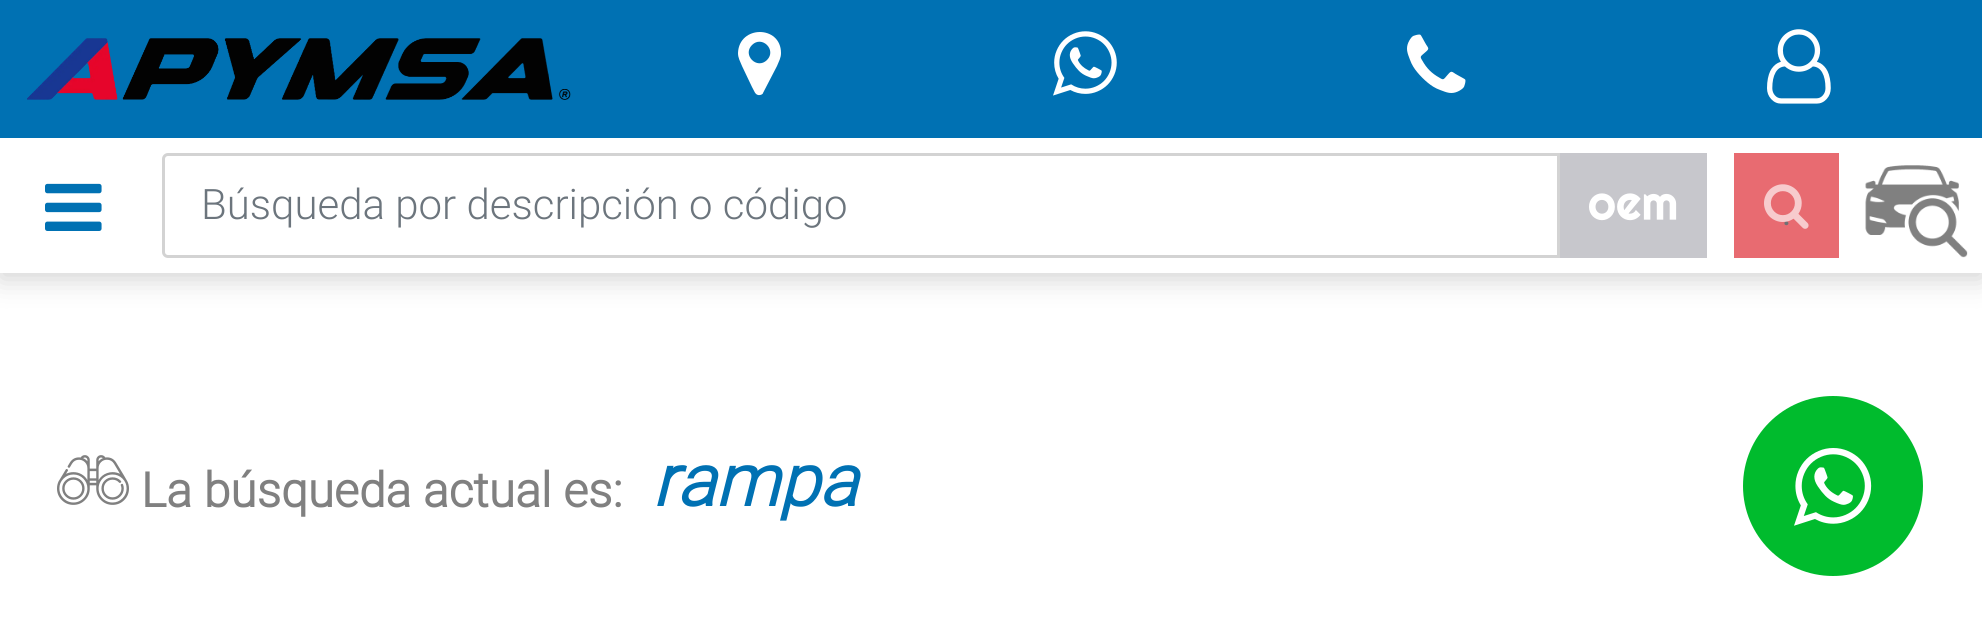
import math
import cairo

surface = cairo.ImageSurface(cairo.FORMAT_RGB24, 1982, 634)
cr = cairo.Context(surface)
options = cairo.FontOptions()
options.set_hint_metrics(cairo.HINT_METRICS_OFF)
options.set_hint_style(cairo.HINT_STYLE_NONE)
cr.set_font_options(options)
cr.set_miter_limit(4)


def rgb(code):
    cr.set_source_rgb(*(v / 255 for v in bytes.fromhex(code[-6:])))


def rrect(x, y, w, h, r):
    cr.new_sub_path()
    for i, (u, v) in enumerate([(x + w - r, y + h - r), (x + r, y + h - r), (x + r, y + r), (x + w - r, y + r)]):
        cr.arc(u, v, r, i * math.pi / 2, (i + 1) * math.pi / 2)
    cr.close_path()


def soft_shadow(x, y, w, h, r, blur, alpha):
    cr.push_group_with_content(cairo.CONTENT_ALPHA)
    cr.set_operator(cairo.OPERATOR_SOURCE)
    for i in range(15, -16, -2):
        e = blur * i / 6
        if min(w, h) + 2 * e > 0:
            cr.set_source_rgba(0, 0, 0, alpha * math.erfc((i - 1) / 8.5) / 2)
            rrect(x - e, y - e, w + 2 * e, h + 2 * e, max(0, min(r + e + blur * .6, min(w, h) / 2 + e)))
            cr.fill()
    cr.mask(cr.pop_group())


def image(path, x, y, w, h):
    cr.save()
    cr.set_source_surface(cairo.ImageSurface.create_from_png(path), x, y)
    cr.rectangle(x, y, w, h)
    cr.fill()
    cr.restore()


rgb("#ffffff")
cr.paint()
rgb("#d3d3d3")
soft_shadow(0, 6, 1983, 273, 0, 13.5, 1)
rgb("#0071b3")
cr.rectangle(0, 0, 1982, 138)
cr.fill()
image("img/1.png", 27, 38, 544, 62)
rgb("#ffffff")
cr.new_path()
cr.move_to(767, 60)
cr.curve_to(777, 50, 762, 35, 752, 45)
cr.curve_to(742, 55, 757, 70, 767, 60)
cr.close_path()
cr.move_to(781, 53)
cr.curve_to(781, 58, 779, 61, 777, 66)
cr.line_to(763, 93)
cr.curve_to(763, 94, 761, 95, 760, 95)
cr.curve_to(755, 96, 754, 90, 752, 87)
cr.line_to(742, 66)
cr.curve_to(740, 61, 738, 58, 738, 53)
cr.curve_to(739, 25, 781, 25, 781, 53)
cr.close_path()
cr.fill()
image("img/2.png", 1053, 31, 64, 65)
image("img/3.png", 1407, 34, 59, 59)
image("img/4.png", 1767, 29, 64, 75)
cr.rectangle(0, 138, 1982, 135)
cr.fill()
image("img/5.png", 45, 183, 57, 48)
cr.new_path()
cr.move_to(168, 154.5)
cr.line_to(1558.5, 154.5)
cr.line_to(1558.5, 256.5)
cr.line_to(168, 256.5)
cr.curve_to(165.5, 256.5, 163.5, 254.5, 163.5, 252)
cr.line_to(163.5, 159)
cr.curve_to(163.5, 156.5, 165.5, 154.5, 168, 154.5)
cr.close_path()
rgb("#d3d3d3")
cr.set_line_width(3)
cr.stroke()
rgb("#c7c7cc")
cr.rectangle(1560, 153, 147, 105)
cr.fill()
image("img/6.png", 1589, 193, 88, 28)
rgb("#e86b71")
cr.rectangle(1734, 153, 105, 105)
cr.fill()
image("img/8.png", 1865, 165, 103, 93)
image("img/9.png", 57, 455, 72, 50)
rgb("#00bb2d")
cr.arc(1833, 486, 90, 0, 2 * math.pi)
cr.fill()
image("img/10.png", 1794, 448, 78, 78)
cr.select_font_face("Roboto Light")
cr.set_font_size(42)
rgb("#6c757d")
cr.move_to(201, 219)
cr.show_text("Búsqueda por descripción o código")
cr.set_font_size(48)
rgb("#6f7174")
cr.move_to(1781, 225)
cr.show_text(".")
image("img/7.png", 1764, 184, 45, 45)
cr.select_font_face("Roboto", cairo.FONT_SLANT_NORMAL, cairo.FONT_WEIGHT_BOLD)
rgb("#808080")
cr.move_to(141, 507)
cr.show_text("La búsqueda actual es:")
cr.select_font_face("Roboto", cairo.FONT_SLANT_ITALIC, cairo.FONT_WEIGHT_BOLD)
cr.set_font_size(72)
rgb("#0071b3")
cr.move_to(652, 506)
cr.show_text("rampa")
surface.write_to_png("page.png")
